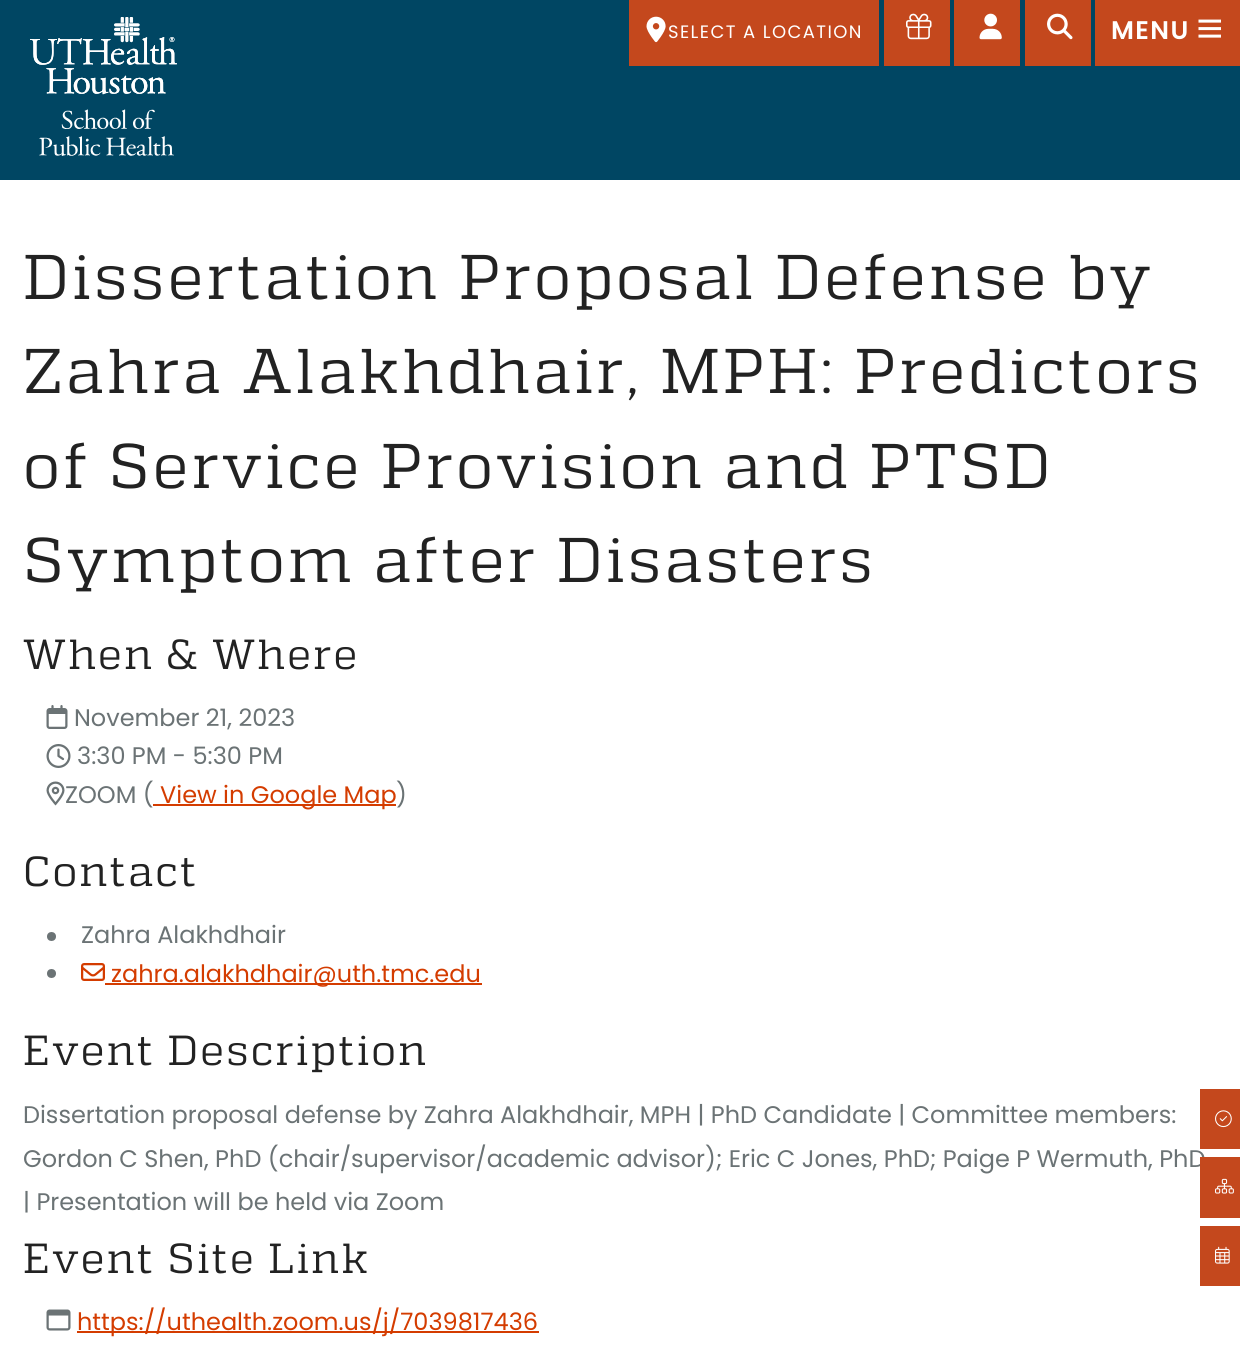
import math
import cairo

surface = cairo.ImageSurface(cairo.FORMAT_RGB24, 1240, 1360)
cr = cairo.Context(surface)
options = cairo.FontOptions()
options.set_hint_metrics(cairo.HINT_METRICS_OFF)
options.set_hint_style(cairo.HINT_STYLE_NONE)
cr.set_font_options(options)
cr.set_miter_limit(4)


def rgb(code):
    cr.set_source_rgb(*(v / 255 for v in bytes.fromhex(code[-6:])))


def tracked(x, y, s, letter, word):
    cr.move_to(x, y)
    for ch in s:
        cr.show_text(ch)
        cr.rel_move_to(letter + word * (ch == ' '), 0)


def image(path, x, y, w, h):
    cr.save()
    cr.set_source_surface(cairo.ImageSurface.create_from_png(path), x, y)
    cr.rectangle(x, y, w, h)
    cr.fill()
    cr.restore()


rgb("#ffffff")
cr.paint()
rgb("#004663")
cr.rectangle(0, 0, 1240, 180)
cr.fill()
image("img/1.png", 30, 17, 147, 139)
rgb("#c4481d")
cr.rectangle(629, 0, 250, 66)
cr.fill()
image("img/2.png", 646, 16, 20, 27)
cr.rectangle(884, 0, 66, 66)
cr.fill()
image("img/3.png", 906, 13, 26, 27)
cr.rectangle(954, 0, 66, 66)
cr.fill()
image("img/4.png", 979, 13, 23, 27)
cr.rectangle(1025, 0, 66, 66)
cr.fill()
image("img/5.png", 1047, 13, 26, 27)
cr.rectangle(1095, 0, 145, 66)
cr.fill()
image("img/6.png", 1198, 19, 23, 19)
image("img/7.png", 46, 705, 22, 24)
image("img/8.png", 46, 744, 25, 24)
image("img/9.png", 46, 781, 19, 25)
rgb("#d43c00")
cr.rectangle(153, 804, 243, 2)
cr.fill()
rgb("#6b7375")
cr.arc(51.5, 936.5, 4.5, 0, 2 * math.pi)
cr.fill()
cr.arc(51.5, 973.5, 4.5, 0, 2 * math.pi)
cr.fill()
image("img/10.png", 81, 963, 24, 18)
rgb("#d43c00")
cr.rectangle(105, 983, 377, 2)
cr.fill()
image("img/11.png", 46, 1309, 25, 22)
cr.rectangle(77, 1331, 462, 2)
cr.fill()
rgb("#c4481d")
cr.rectangle(1200, 1226, 40, 60)
cr.fill()
image("img/14.png", 1215, 1246, 15, 18)
cr.select_font_face("Poppins")
cr.set_font_size(18)
rgb("#ffffff")
tracked(668, 38, "SELECT A LOCATION", 1.4, 0)
cr.select_font_face("Poppins SemiBold")
cr.set_font_size(25.5)
tracked(1111, 39, "MENU", 1.4, 0)
cr.select_font_face("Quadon")
cr.set_font_size(63)
rgb("#222222")
for x, y, s in [
    (23, 299, "Dissertation Proposal Defense by"),
    (23, 393, "Zahra Alakhdhair, MPH: Predictors"),
    (23, 488, "of Service Provision and PTSD"),
    (23, 582, "Symptom after Disasters"),
]:
    tracked(x, y, s, 3.15, 0)
cr.set_font_size(42)
tracked(23, 669, "When & Where", 2.1, 0)
cr.select_font_face("Poppins")
cr.set_font_size(24)
rgb("#6b7375")
for x, y, s in [
    (74, 726, "November 21, 2023"),
    (77, 764, "3:30 PM - 5:30 PM"),
    (65, 803, "ZOOM ("),
]:
    cr.move_to(x, y)
    cr.show_text(s)
rgb("#d43c00")
cr.move_to(160, 803)
cr.show_text("View in Google Map")
rgb("#6b7375")
cr.move_to(396, 803)
cr.show_text(")")
cr.select_font_face("Quadon")
cr.set_font_size(42)
rgb("#222222")
tracked(23, 886, "Contact", 2.1, 0)
cr.select_font_face("Poppins")
cr.set_font_size(24)
rgb("#6b7375")
cr.move_to(81, 943)
cr.show_text("Zahra Alakhdhair")
rgb("#d43c00")
cr.move_to(111, 982)
cr.show_text("zahra.alakhdhair@uth.tmc.edu")
cr.select_font_face("Quadon")
cr.set_font_size(42)
rgb("#222222")
tracked(23, 1065, "Event Description", 2.1, 0)
cr.select_font_face("Poppins")
cr.set_font_size(24)
rgb("#6b7375")
for x, y, s in [
    (23, 1123, "Dissertation proposal defense by Zahra Alakhdhair, MPH | PhD Candidate | Committee members:"),
    (23, 1167, "Gordon C Shen, PhD (chair/supervisor/academic advisor); Eric C Jones, PhD; Paige P Wermuth, PhD"),
    (23, 1210, "| Presentation will be held via Zoom"),
]:
    cr.move_to(x, y)
    cr.show_text(s)
cr.select_font_face("Quadon")
cr.set_font_size(42)
rgb("#222222")
tracked(23, 1273, "Event Site Link", 2.1, 0)
cr.select_font_face("Poppins")
cr.set_font_size(24)
rgb("#d43c00")
cr.move_to(77, 1330)
cr.show_text("https://uthealth.zoom.us/j/7039817436")
rgb("#c4481d")
cr.rectangle(1200, 1089, 40, 60)
cr.fill()
image("img/12.png", 1215, 1110, 17, 18)
cr.rectangle(1200, 1157, 40, 61)
cr.fill()
image("img/13.png", 1215, 1178, 19, 16)
surface.write_to_png("page.png")
